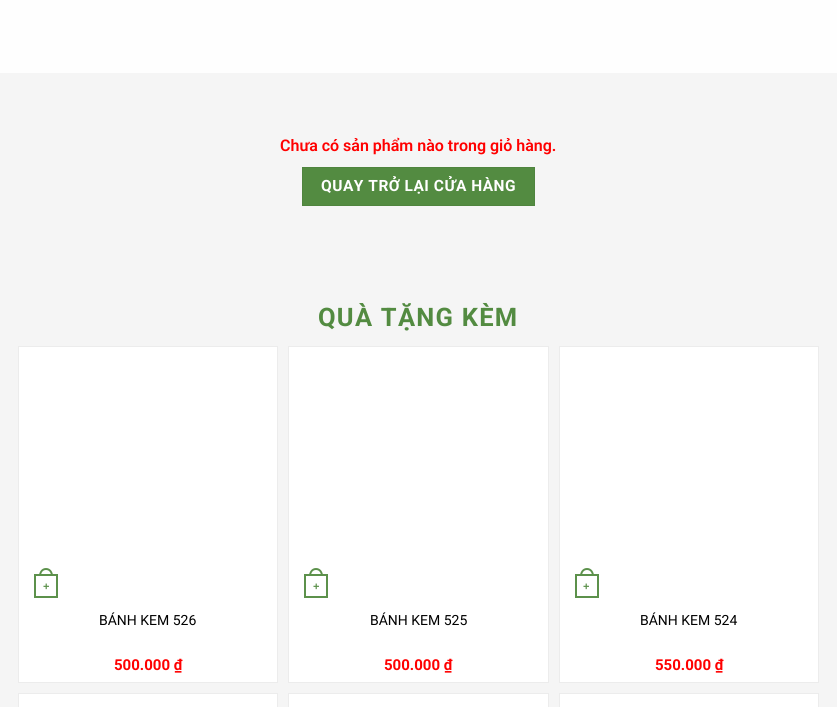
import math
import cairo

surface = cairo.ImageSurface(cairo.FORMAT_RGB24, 837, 707)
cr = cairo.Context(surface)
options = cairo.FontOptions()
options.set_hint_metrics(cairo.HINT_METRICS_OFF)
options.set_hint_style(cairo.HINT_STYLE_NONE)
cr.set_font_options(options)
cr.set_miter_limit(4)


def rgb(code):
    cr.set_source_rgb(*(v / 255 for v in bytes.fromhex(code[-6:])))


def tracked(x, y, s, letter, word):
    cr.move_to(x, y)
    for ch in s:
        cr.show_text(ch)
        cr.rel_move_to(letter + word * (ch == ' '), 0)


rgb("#f5f5f5")
cr.paint()
rgb("#fefefe")
cr.rectangle(0, 0, 837, 73)
cr.fill()
rgb("#538b41")
cr.rectangle(302.5, 167.5, 232, 38)
cr.fill_preserve()
rgb("#4f843e")
cr.set_line_width(1)
cr.stroke()
rgb("#ffffff")
cr.rectangle(18.5, 346.5, 259, 336)
cr.fill_preserve()
rgb("#ececec")
cr.stroke()
cr.rectangle(35, 575, 22, 22)
rgb("#5c914b")
cr.set_line_width(2)
cr.stroke()
cr.set_fill_rule(cairo.FILL_RULE_EVEN_ODD)
cr.new_path()
cr.move_to(46, 568)
cr.curve_to(50.5, 568, 53, 572, 53, 576)
cr.line_to(39, 576)
cr.curve_to(39, 572, 41.5, 568, 46, 568)
cr.close_path()
cr.move_to(46, 570)
cr.curve_to(49.5, 570, 51, 573, 51, 576)
cr.line_to(41, 576)
cr.curve_to(41, 573, 42.5, 570, 46, 570)
cr.close_path()
cr.fill()
rgb("#ffffff")
cr.rectangle(288.5, 346.5, 260, 336)
cr.fill_preserve()
rgb("#ececec")
cr.set_line_width(1)
cr.stroke()
cr.rectangle(305, 575, 22, 22)
rgb("#5c914b")
cr.set_line_width(2)
cr.stroke()
cr.new_path()
cr.move_to(316, 568)
cr.curve_to(320.5, 568, 323, 572, 323, 576)
cr.line_to(309, 576)
cr.curve_to(309, 572, 311.5, 568, 316, 568)
cr.close_path()
cr.move_to(316, 570)
cr.curve_to(319.5, 570, 321, 573, 321, 576)
cr.line_to(311, 576)
cr.curve_to(311, 573, 312.5, 570, 316, 570)
cr.close_path()
cr.fill()
rgb("#ffffff")
cr.rectangle(559.5, 346.5, 259, 336)
cr.fill_preserve()
rgb("#ececec")
cr.set_line_width(1)
cr.stroke()
cr.rectangle(576, 575, 22, 22)
rgb("#5c914b")
cr.set_line_width(2)
cr.stroke()
cr.new_path()
cr.move_to(587, 568)
cr.curve_to(591.5, 568, 594, 572, 594, 576)
cr.line_to(580, 576)
cr.curve_to(580, 572, 582.5, 568, 587, 568)
cr.close_path()
cr.move_to(587, 570)
cr.curve_to(590.5, 570, 592, 573, 592, 576)
cr.line_to(582, 576)
cr.curve_to(582, 573, 583.5, 570, 587, 570)
cr.close_path()
cr.fill()
rgb("#ffffff")
cr.rectangle(18.5, 693.5, 259, 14)
cr.fill_preserve()
rgb("#ececec")
cr.set_line_width(1)
cr.stroke()
rgb("#ffffff")
cr.rectangle(288.5, 693.5, 260, 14)
cr.fill_preserve()
rgb("#ececec")
cr.stroke()
rgb("#ffffff")
cr.rectangle(559.5, 693.5, 259, 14)
cr.fill_preserve()
rgb("#ececec")
cr.stroke()
cr.select_font_face("Roboto SemiBold")
cr.set_font_size(16)
rgb("#ff0000")
cr.move_to(280, 151)
cr.show_text("Chưa có sản phẩm nào trong giỏ hàng.")
cr.select_font_face("Roboto", cairo.FONT_SLANT_NORMAL, cairo.FONT_WEIGHT_BOLD)
cr.set_font_size(15.5)
rgb("#ffffff")
tracked(321, 191, "QUAY TRỞ LẠI CỬA HÀNG", 0.5, 0)
cr.set_font_size(25.5)
rgb("#538b41")
tracked(318, 326, "QUÀ TẶNG KÈM", 1.25, 0)
cr.select_font_face("Liberation Sans", cairo.FONT_SLANT_NORMAL, cairo.FONT_WEIGHT_BOLD)
cr.set_font_size(11)
rgb("#5c914b")
cr.move_to(43, 590)
cr.show_text("+")
cr.select_font_face("Roboto")
cr.set_font_size(14)
rgb("#000000")
cr.move_to(99, 625)
cr.show_text("BÁNH KEM 526")
cr.select_font_face("Roboto", cairo.FONT_SLANT_NORMAL, cairo.FONT_WEIGHT_BOLD)
cr.set_font_size(15)
rgb("#ff0000")
cr.move_to(114, 670)
cr.show_text("500.000 ₫")
cr.select_font_face("Liberation Sans", cairo.FONT_SLANT_NORMAL, cairo.FONT_WEIGHT_BOLD)
cr.set_font_size(11)
rgb("#5c914b")
cr.move_to(313, 590)
cr.show_text("+")
cr.select_font_face("Roboto")
cr.set_font_size(14)
rgb("#000000")
cr.move_to(370, 625)
cr.show_text("BÁNH KEM 525")
cr.select_font_face("Roboto", cairo.FONT_SLANT_NORMAL, cairo.FONT_WEIGHT_BOLD)
cr.set_font_size(15)
rgb("#ff0000")
cr.move_to(384, 670)
cr.show_text("500.000 ₫")
cr.select_font_face("Liberation Sans", cairo.FONT_SLANT_NORMAL, cairo.FONT_WEIGHT_BOLD)
cr.set_font_size(11)
rgb("#5c914b")
cr.move_to(583, 590)
cr.show_text("+")
cr.select_font_face("Roboto")
cr.set_font_size(14)
rgb("#000000")
cr.move_to(640, 625)
cr.show_text("BÁNH KEM 524")
cr.select_font_face("Roboto", cairo.FONT_SLANT_NORMAL, cairo.FONT_WEIGHT_BOLD)
cr.set_font_size(15)
rgb("#ff0000")
cr.move_to(655, 670)
cr.show_text("550.000 ₫")
surface.write_to_png("page.png")
